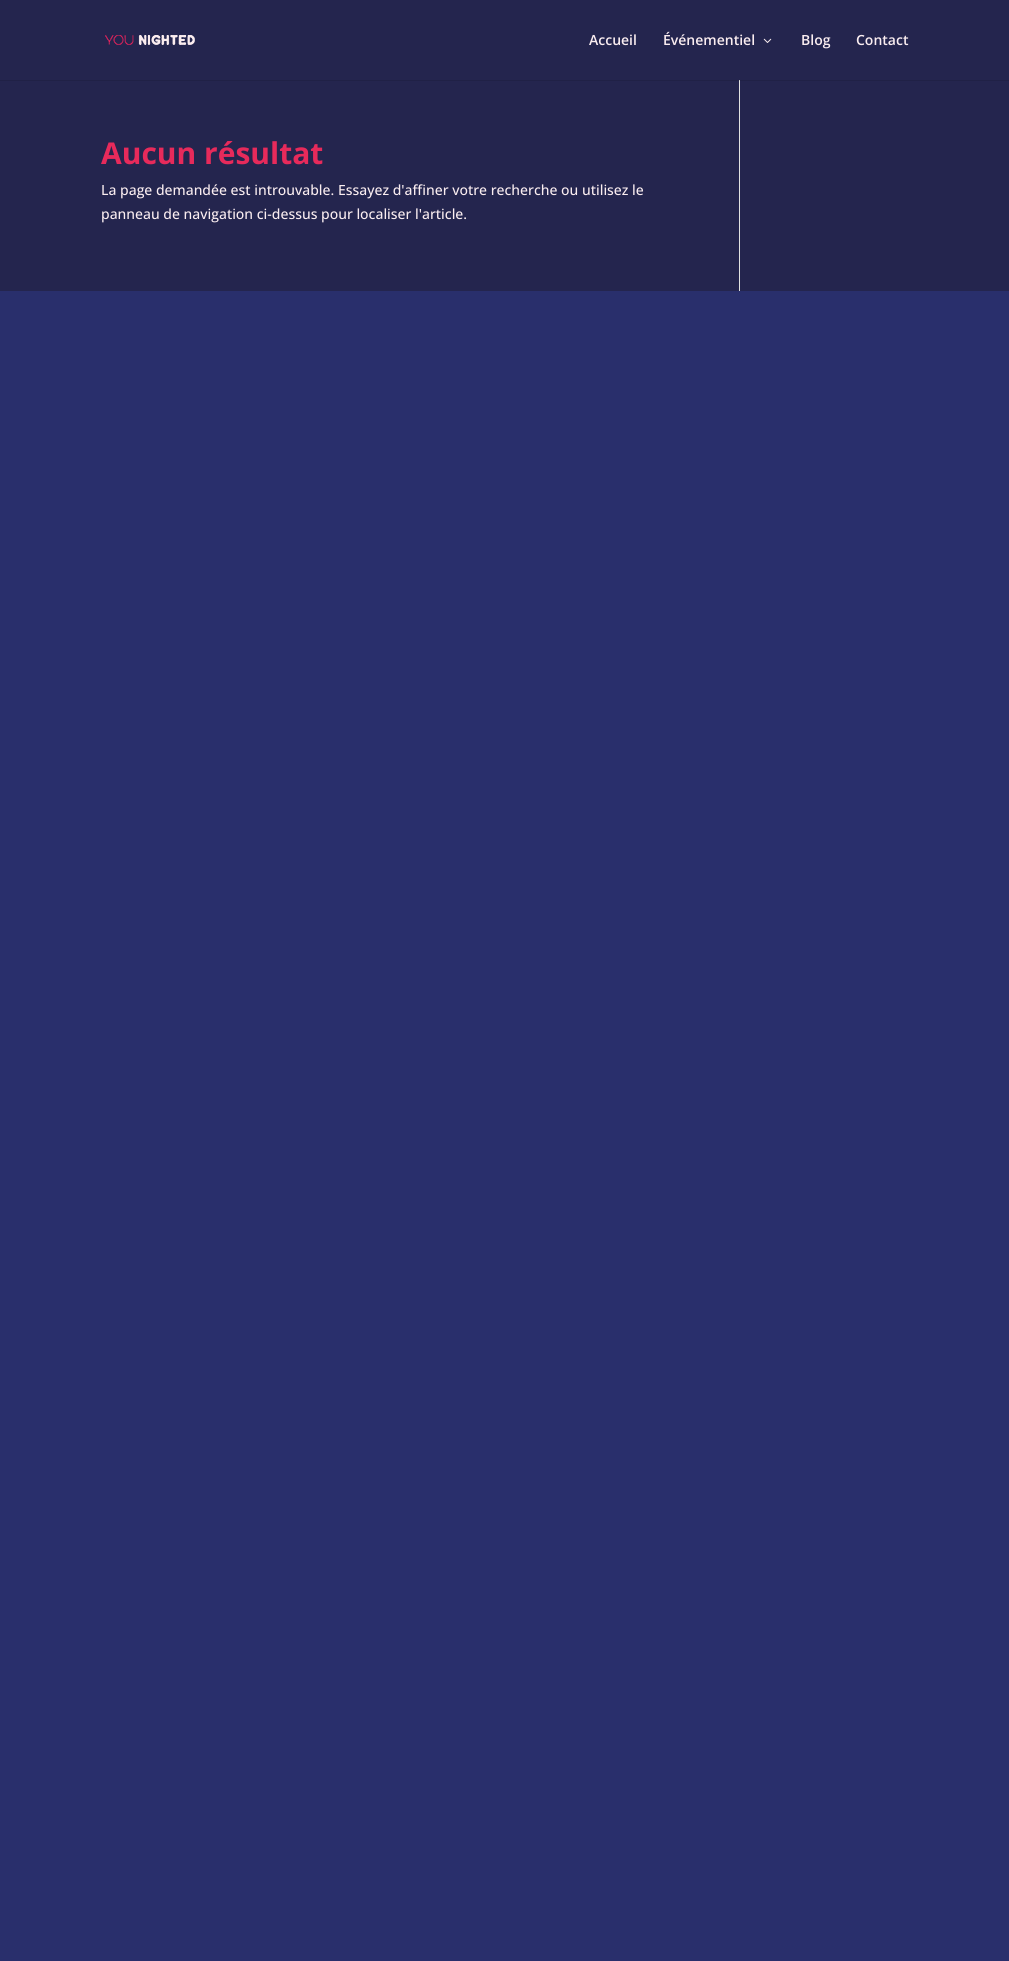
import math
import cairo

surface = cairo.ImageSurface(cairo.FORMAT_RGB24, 1009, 1961)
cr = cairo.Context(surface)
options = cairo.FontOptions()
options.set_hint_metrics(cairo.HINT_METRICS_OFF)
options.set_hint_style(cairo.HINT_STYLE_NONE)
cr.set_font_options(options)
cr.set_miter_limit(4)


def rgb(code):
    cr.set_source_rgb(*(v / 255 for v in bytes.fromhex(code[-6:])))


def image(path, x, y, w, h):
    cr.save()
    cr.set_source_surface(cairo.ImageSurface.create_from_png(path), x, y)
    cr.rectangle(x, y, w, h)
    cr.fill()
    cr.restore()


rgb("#292f6c")
cr.paint()
rgb("#24254e")
cr.rectangle(0, 0, 1009, 80)
cr.fill()
image("img/1.png", 105, 35, 90, 10)
image("img/2.png", 763, 38, 9, 5)
for x, y, w, h, color in [
    (0, 81, 1009, 210, "#24254e"),
    (0, 80, 1009, 1, "#202146"),
    (739, 80, 1, 211, "#e2e2e2"),
    (739, 80, 1, 1, "#cbcbcb"),
]:
    rgb(color)
    cr.rectangle(x, y, w, h)
    cr.fill()
cr.select_font_face("Open Sans SemiBold")
cr.set_font_size(14)
rgb("#faedf0")
for x, y, s in [
    (589, 45, "Accueil"),
    (663, 45, "Événementiel"),
    (801, 45, "Blog"),
    (856, 45, "Contact"),
]:
    cr.move_to(x, y)
    cr.show_text(s)
cr.select_font_face("Open Sans", cairo.FONT_SLANT_NORMAL, cairo.FONT_WEIGHT_BOLD)
cr.set_font_size(30)
rgb("#e72a5b")
cr.move_to(101, 164)
cr.show_text("Aucun résultat")
cr.select_font_face("Open Sans Medium")
cr.set_font_size(14)
rgb("#faedf0")
cr.move_to(101, 195)
cr.show_text("La page demandée est introuvable. Essayez d'affiner votre recherche ou utilisez le")
cr.move_to(101, 219)
cr.show_text("panneau de navigation ci-dessus pour localiser l'article.")
surface.write_to_png("page.png")
